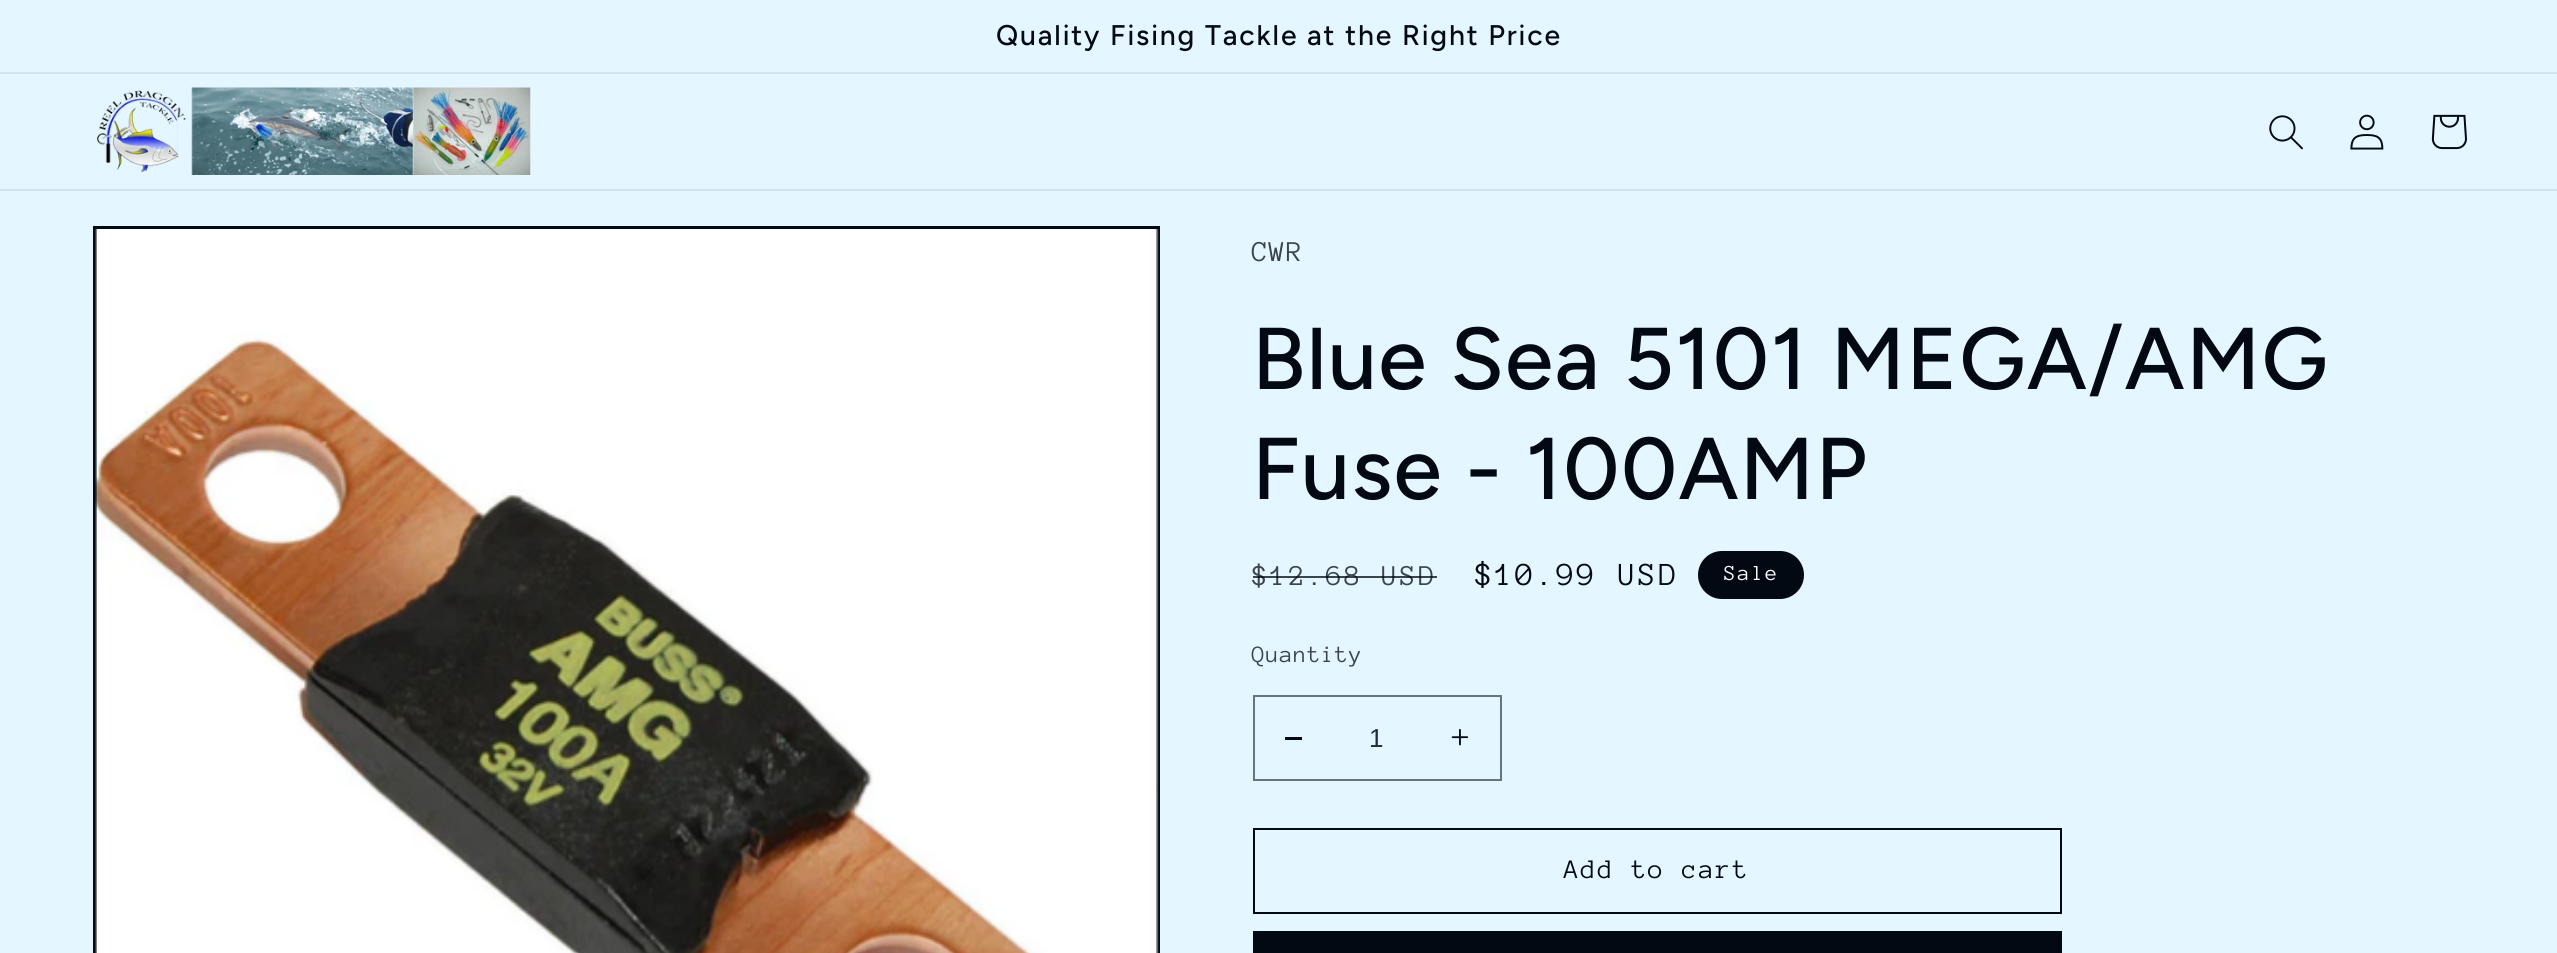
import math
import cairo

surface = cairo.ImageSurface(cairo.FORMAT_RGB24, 2557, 953)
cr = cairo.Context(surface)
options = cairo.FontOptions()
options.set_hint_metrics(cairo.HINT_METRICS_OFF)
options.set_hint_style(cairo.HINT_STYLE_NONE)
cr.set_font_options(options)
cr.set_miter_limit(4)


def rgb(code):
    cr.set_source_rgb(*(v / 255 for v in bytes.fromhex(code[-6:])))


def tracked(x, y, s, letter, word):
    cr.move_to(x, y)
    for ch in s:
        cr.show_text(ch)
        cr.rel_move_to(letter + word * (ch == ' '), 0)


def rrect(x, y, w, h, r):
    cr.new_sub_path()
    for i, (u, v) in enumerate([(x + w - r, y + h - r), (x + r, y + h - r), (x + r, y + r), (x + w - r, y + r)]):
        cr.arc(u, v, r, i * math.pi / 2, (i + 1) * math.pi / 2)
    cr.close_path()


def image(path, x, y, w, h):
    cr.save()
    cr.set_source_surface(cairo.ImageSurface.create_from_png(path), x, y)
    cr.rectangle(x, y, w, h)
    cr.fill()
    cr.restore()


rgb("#e4f6ff")
cr.paint()
rgb("#d2e3ec")
cr.rectangle(0, 72, 2557, 2)
cr.fill()
cr.rectangle(0, 189, 2557, 2)
cr.fill()
image("img/1.png", 97, 87, 434, 88)
image("img/2.png", 2269, 115, 34, 35)
image("img/3.png", 2350, 114, 34, 36)
image("img/4.png", 2431, 114, 36, 36)
cr.rectangle(95, 228, 1063, 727)
rgb("#020912")
cr.set_line_width(4)
cr.stroke()
image("img/5.png", 95, 229, 1064, 724)
rrect(1699, 552, 104, 46, 23)
cr.fill_preserve()
cr.set_line_width(2)
cr.stroke()
cr.rectangle(1285, 737, 17, 3)
cr.fill()
image("img/6.png", 1451, 729, 17, 17)
cr.rectangle(1254, 696, 247, 84)
rgb("#68747d")
cr.stroke()
cr.rectangle(1254, 829, 807, 84)
rgb("#020912")
cr.stroke()
cr.rectangle(1253, 931, 809, 22)
cr.fill()
cr.select_font_face("Figtree Medium")
cr.set_font_size(28.4)
tracked(996, 45, "Quality Fising Tackle at the Right Price", 1.85, 0)
cr.select_font_face("Anonymous Pro")
cr.set_font_size(29.5)
rgb("#3b444d")
tracked(1252, 261, "CWR", 1, 0)
cr.select_font_face("Figtree Medium")
cr.set_font_size(87.5)
rgb("#020912")
tracked(1252, 389, "Blue Sea 5101 MEGA/AMG", 1.3, 0)
tracked(1252, 499, "Fuse - 100AMP", 1.3, 0)
cr.select_font_face("Anonymous Pro")
cr.set_font_size(29.5)
rgb("#3b444d")
tracked(1252, 585, "$12.68 USD", 2.4, 0)
cr.set_source_rgba(0.008, 0.035, 0.071, 0.75)
cr.rectangle(1253, 576, 184, 2)
cr.fill()
cr.set_font_size(33)
rgb("#020912")
tracked(1475, 585, "$10.99 USD", 2.4, 0)
cr.set_font_size(22)
rgb("#fcfcfc")
tracked(1724, 580, "Sale", 1.85, 0)
cr.set_font_size(24)
rgb("#3b444d")
tracked(1252, 662, "Quantity", 0.75, 0)
cr.select_font_face("Liberation Sans")
cr.set_font_size(26)
rgb("#242d36")
cr.move_to(1369, 747)
cr.show_text("1")
cr.select_font_face("Anonymous Pro")
cr.set_font_size(27.5)
rgb("#020912")
tracked(1564, 878, "Add to cart", 1.85, 0)
surface.write_to_png("page.png")
